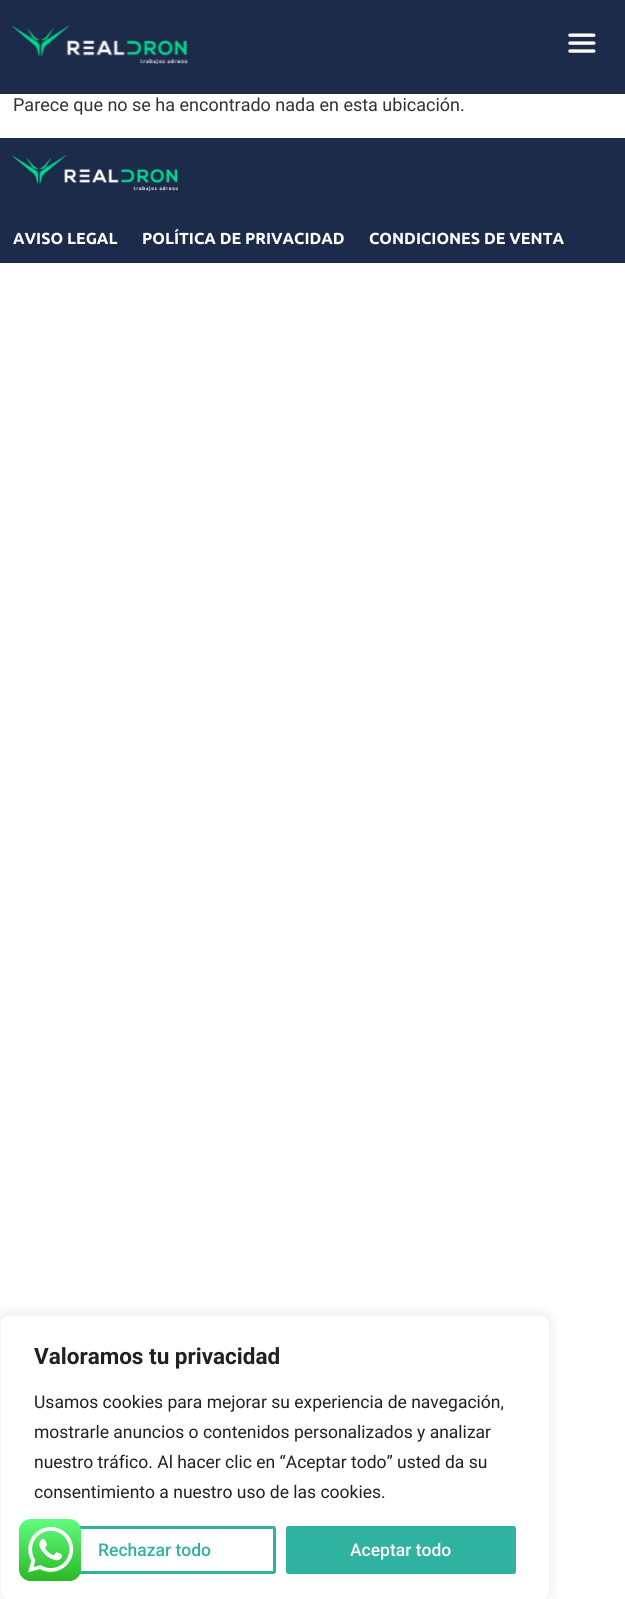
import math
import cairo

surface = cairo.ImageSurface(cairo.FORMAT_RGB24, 625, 1599)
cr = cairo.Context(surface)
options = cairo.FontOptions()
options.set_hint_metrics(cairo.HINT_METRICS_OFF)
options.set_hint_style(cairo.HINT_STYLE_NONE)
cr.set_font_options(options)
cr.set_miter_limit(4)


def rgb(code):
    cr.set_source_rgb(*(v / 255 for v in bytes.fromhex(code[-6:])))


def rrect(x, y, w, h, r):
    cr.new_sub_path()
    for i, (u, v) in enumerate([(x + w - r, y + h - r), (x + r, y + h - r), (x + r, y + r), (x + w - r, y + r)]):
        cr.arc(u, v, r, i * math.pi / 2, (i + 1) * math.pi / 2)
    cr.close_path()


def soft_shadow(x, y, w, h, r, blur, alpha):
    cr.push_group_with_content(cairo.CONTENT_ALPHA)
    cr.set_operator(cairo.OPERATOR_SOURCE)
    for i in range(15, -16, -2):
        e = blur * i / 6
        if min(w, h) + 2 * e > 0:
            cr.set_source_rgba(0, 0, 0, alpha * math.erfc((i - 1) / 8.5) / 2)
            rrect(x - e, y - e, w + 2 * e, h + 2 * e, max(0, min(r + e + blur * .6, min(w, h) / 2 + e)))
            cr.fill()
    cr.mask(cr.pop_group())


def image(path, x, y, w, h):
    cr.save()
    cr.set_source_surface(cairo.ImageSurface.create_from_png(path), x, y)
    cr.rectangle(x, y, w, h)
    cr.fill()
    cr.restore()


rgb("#ffffff")
cr.paint()
rgb("#1d2b4b")
cr.rectangle(0, 0, 625, 94)
cr.fill()
image("img/1.png", 12, 25, 176, 40)
image("img/2.png", 568, 33, 28, 20)
cr.rectangle(0, 138, 625, 125)
cr.fill()
image("img/3.png", 12, 155, 166, 37)
rgb("#acabab")
soft_shadow(0, 1314, 550, 285, 8, 6, 0.3)
rgb("#ffffff")
rrect(0.5, 1315.5, 549, 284, 7.5)
cr.fill_preserve()
rgb("#f4f4f4")
cr.set_line_width(1)
cr.stroke()
rrect(35.5, 1527.5, 239, 45, 1)
rgb("#2fb29f")
cr.set_line_width(3)
cr.stroke()
rrect(287.5, 1527.5, 227, 45, 1)
cr.fill_preserve()
cr.stroke()
image("img/4.png", 19, 1519, 62, 62)
cr.select_font_face("Roboto")
cr.set_font_size(18)
rgb("#333333")
cr.move_to(13, 111)
cr.show_text("Parece que no se ha encontrado nada en esta ubicación.")
cr.select_font_face("Ubuntu", cairo.FONT_SLANT_NORMAL, cairo.FONT_WEIGHT_BOLD)
cr.set_font_size(16)
rgb("#ffffff")
for x, y, s in [
    (13, 244, "AVISO LEGAL"),
    (142, 244, "POLÍTICA DE PRIVACIDAD"),
    (369, 244, "CONDICIONES DE VENTA"),
]:
    cr.move_to(x, y)
    cr.show_text(s)
cr.select_font_face("Roboto", cairo.FONT_SLANT_NORMAL, cairo.FONT_WEIGHT_BOLD)
cr.set_font_size(22.5)
rgb("#212121")
cr.move_to(34, 1364)
cr.show_text("Valoramos tu privacidad")
cr.select_font_face("Roboto")
cr.set_font_size(17.5)
for x, y, s in [
    (34, 1408, "Usamos cookies para mejorar su experiencia de navegación,"),
    (34, 1438, "mostrarle anuncios o contenidos personalizados y analizar"),
    (34, 1468, "nuestro tráfico. Al hacer clic en “Aceptar todo” usted da su"),
    (34, 1498, "consentimiento a nuestro uso de las cookies."),
]:
    cr.move_to(x, y)
    cr.show_text(s)
cr.select_font_face("Roboto Medium")
rgb("#2fb29f")
cr.move_to(98, 1556)
cr.show_text("Rechazar todo")
rgb("#ffffff")
cr.move_to(350, 1556)
cr.show_text("Aceptar todo")
surface.write_to_png("page.png")
